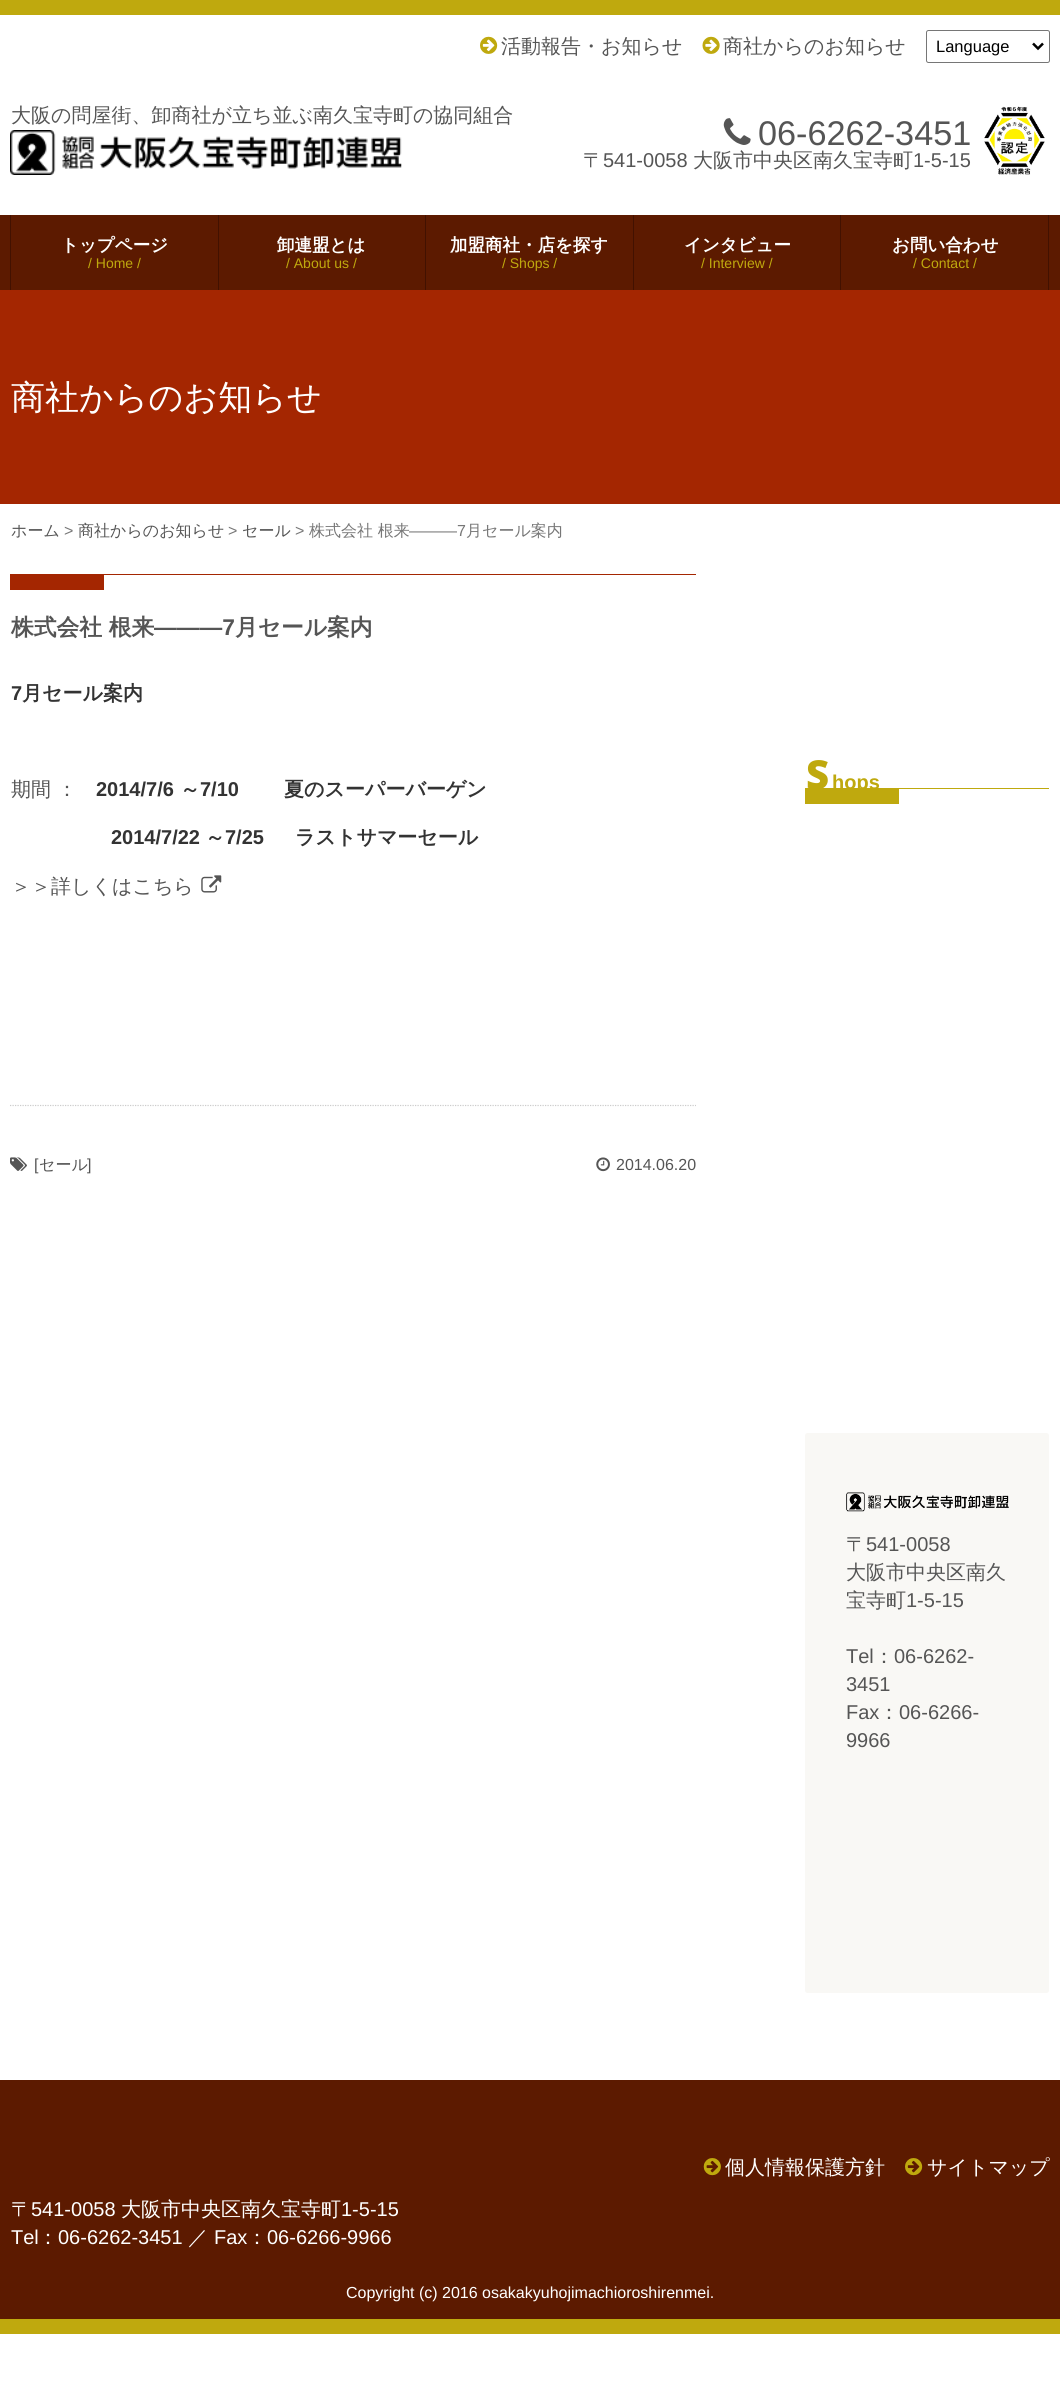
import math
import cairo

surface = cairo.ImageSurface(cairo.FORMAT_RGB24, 1060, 2404)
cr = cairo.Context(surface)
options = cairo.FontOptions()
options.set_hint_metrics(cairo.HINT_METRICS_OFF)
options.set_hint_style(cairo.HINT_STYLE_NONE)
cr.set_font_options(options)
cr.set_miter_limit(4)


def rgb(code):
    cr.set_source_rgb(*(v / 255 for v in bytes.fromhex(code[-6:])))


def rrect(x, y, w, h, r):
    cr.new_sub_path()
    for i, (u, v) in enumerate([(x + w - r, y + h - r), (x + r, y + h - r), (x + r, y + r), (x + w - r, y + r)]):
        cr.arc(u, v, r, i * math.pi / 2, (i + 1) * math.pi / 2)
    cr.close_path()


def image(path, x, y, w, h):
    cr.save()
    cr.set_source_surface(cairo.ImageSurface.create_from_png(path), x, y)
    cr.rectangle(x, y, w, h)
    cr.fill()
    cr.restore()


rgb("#ffffff")
cr.paint()
rgb("#bfa90e")
cr.rectangle(0, 0, 1060, 15)
cr.fill()
image("img/1.png", 480, 36, 18, 18)
image("img/2.png", 702, 36, 18, 18)
rrect(926.5, 30.5, 123, 32, 2)
rgb("#767676")
cr.set_line_width(1)
cr.stroke()
cr.new_path()
cr.move_to(1033, 43.5)
cr.line_to(1038, 48.5)
cr.line_to(1043, 43.5)
rgb("#000000")
cr.set_line_width(2.5)
cr.stroke()
image("img/3.png", 10, 130, 392, 45)
image("img/4.png", 723, 118, 28, 27)
image("img/5.png", 984, 106, 61, 69)
for x, y, w, h, color in [
    (0, 215, 1060, 75, "#5c1a00"),
    (218, 215, 1, 75, "#421100"),
    (10, 215, 1, 75, "#421100"),
    (425, 215, 1, 75, "#421100"),
    (633, 215, 1, 75, "#421100"),
    (840, 215, 1, 75, "#421100"),
    (1048, 215, 1, 75, "#421100"),
    (0, 290, 1060, 214, "#a42601"),
    (10, 574, 686, 1, "#a42601"),
    (10, 575, 94, 15, "#a42601"),
]:
    rgb(color)
    cr.rectangle(x, y, w, h)
    cr.fill()
image("img/6.png", 201, 875, 21, 18)
cr.new_path()
cr.move_to(10, 1105.5)
cr.line_to(696, 1105.5)
rgb("#cccccc")
cr.set_line_width(1.2)
cr.set_dash([1.25, 1.25])
cr.stroke()
image("img/7.png", 10, 1157, 17, 14)
image("img/8.png", 596, 1157, 14, 15)
rgb("#bfa90e")
cr.rectangle(805, 788, 244, 1)
cr.fill()
cr.rectangle(805, 789, 94, 15)
cr.fill()
rgb("#f9f8f5")
rrect(805, 1433, 244, 560, 2.5)
cr.fill()
image("img/9.png", 846, 1492, 163, 20)
rgb("#5c1a00")
cr.rectangle(0, 2080, 1060, 239)
cr.fill()
image("img/10.png", 703, 2158, 18, 18)
image("img/11.png", 905, 2158, 18, 18)
rgb("#bfa90e")
cr.rectangle(0, 2319, 1060, 15)
cr.fill()
cr.select_font_face("WenQuanYi Zen Hei Medium")
cr.set_font_size(20)
rgb("#555555")
cr.move_to(501, 53)
cr.show_text("活動報告・お知らせ")
cr.move_to(723, 53)
cr.show_text("商社からのお知らせ")
cr.select_font_face("Liberation Sans")
cr.set_font_size(16.5)
rgb("#000000")
cr.move_to(936, 52)
cr.show_text("Language")
cr.select_font_face("WenQuanYi Zen Hei Medium")
cr.set_font_size(20)
rgb("#555555")
cr.move_to(11, 122)
cr.show_text("大阪の問屋街、卸商社が立ち並ぶ南久宝寺町の協同組合")
cr.select_font_face("Liberation Sans")
cr.set_font_size(34.25)
cr.move_to(758, 145)
cr.show_text("06-6262-3451")
cr.select_font_face("WenQuanYi Zen Hei Medium")
cr.set_font_size(20)
cr.move_to(583, 167)
cr.show_text("〒")
cr.select_font_face("Liberation Sans")
cr.move_to(603, 167)
cr.show_text("541-0058")
cr.select_font_face("WenQuanYi Zen Hei Medium")
cr.move_to(693, 167)
cr.show_text("大阪市中央区南久宝寺町")
cr.select_font_face("Liberation Sans")
cr.move_to(913, 167)
cr.show_text("1-5-15")
cr.select_font_face("WenQuanYi Zen Hei", cairo.FONT_SLANT_NORMAL, cairo.FONT_WEIGHT_BOLD)
cr.set_font_size(17.5)
rgb("#ffffff")
cr.move_to(61, 251)
cr.show_text("トップページ")
cr.select_font_face("Liberation Sans")
cr.set_font_size(14)
rgb("#bfa90e")
cr.move_to(88, 268)
cr.show_text("/ Home /")
cr.select_font_face("WenQuanYi Zen Hei", cairo.FONT_SLANT_NORMAL, cairo.FONT_WEIGHT_BOLD)
cr.set_font_size(17.5)
rgb("#ffffff")
cr.move_to(277, 251)
cr.show_text("卸連盟とは")
cr.select_font_face("Liberation Sans")
cr.set_font_size(14)
rgb("#bfa90e")
cr.move_to(286, 268)
cr.show_text("/ About us /")
cr.select_font_face("WenQuanYi Zen Hei", cairo.FONT_SLANT_NORMAL, cairo.FONT_WEIGHT_BOLD)
cr.set_font_size(17.5)
rgb("#ffffff")
cr.move_to(450, 251)
cr.show_text("加盟商社・店を探す")
cr.select_font_face("Liberation Sans")
cr.set_font_size(14)
rgb("#bfa90e")
cr.move_to(502, 268)
cr.show_text("/ Shops /")
cr.select_font_face("WenQuanYi Zen Hei", cairo.FONT_SLANT_NORMAL, cairo.FONT_WEIGHT_BOLD)
cr.set_font_size(17.5)
rgb("#ffffff")
cr.move_to(684, 251)
cr.show_text("インタビュー")
cr.select_font_face("Liberation Sans")
cr.set_font_size(14)
rgb("#bfa90e")
cr.move_to(701, 268)
cr.show_text("/ Interview /")
cr.select_font_face("WenQuanYi Zen Hei", cairo.FONT_SLANT_NORMAL, cairo.FONT_WEIGHT_BOLD)
cr.set_font_size(17.5)
rgb("#ffffff")
cr.move_to(892, 251)
cr.show_text("お問い合わせ")
cr.select_font_face("Liberation Sans")
cr.set_font_size(14)
rgb("#bfa90e")
cr.move_to(913, 268)
cr.show_text("/ Contact /")
cr.select_font_face("WenQuanYi Zen Hei Medium")
cr.set_font_size(34)
rgb("#ffffff")
cr.move_to(11, 409)
cr.show_text("商社からのお知らせ")
cr.set_font_size(16)
rgb("#555555")
cr.move_to(11, 536)
cr.show_text("ホーム")
cr.select_font_face("Liberation Sans")
rgb("#777777")
cr.move_to(64, 536)
cr.show_text(">")
cr.select_font_face("WenQuanYi Zen Hei Medium")
rgb("#555555")
cr.move_to(78, 536)
cr.show_text("商社からのお知らせ")
cr.select_font_face("Liberation Sans")
rgb("#777777")
cr.move_to(228, 536)
cr.show_text(">")
cr.select_font_face("WenQuanYi Zen Hei Medium")
rgb("#555555")
cr.move_to(242, 536)
cr.show_text("セール")
cr.select_font_face("Liberation Sans")
rgb("#777777")
cr.move_to(295, 536)
cr.show_text(">")
cr.select_font_face("WenQuanYi Zen Hei Medium")
cr.move_to(309, 536)
cr.show_text("株式会社 根来")
cr.select_font_face("Liberation Sans")
cr.move_to(409, 536)
cr.show_text("―――7")
cr.select_font_face("WenQuanYi Zen Hei Medium")
cr.move_to(466, 536)
cr.show_text("月セール案内")
cr.select_font_face("WenQuanYi Zen Hei", cairo.FONT_SLANT_NORMAL, cairo.FONT_WEIGHT_BOLD)
cr.set_font_size(22.75)
rgb("#555555")
cr.move_to(11, 635)
cr.show_text("株式会社 根来")
cr.select_font_face("Liberation Sans", cairo.FONT_SLANT_NORMAL, cairo.FONT_WEIGHT_BOLD)
cr.move_to(154, 635)
cr.show_text("―――7")
cr.select_font_face("WenQuanYi Zen Hei", cairo.FONT_SLANT_NORMAL, cairo.FONT_WEIGHT_BOLD)
cr.move_to(235, 635)
cr.show_text("月セール案内")
cr.select_font_face("Liberation Sans", cairo.FONT_SLANT_NORMAL, cairo.FONT_WEIGHT_BOLD)
cr.set_font_size(20)
rgb("#333333")
cr.move_to(11, 700)
cr.show_text("7")
cr.select_font_face("WenQuanYi Zen Hei", cairo.FONT_SLANT_NORMAL, cairo.FONT_WEIGHT_BOLD)
cr.move_to(22, 700)
cr.show_text("月セール案内")
cr.select_font_face("WenQuanYi Zen Hei Medium")
rgb("#555555")
cr.move_to(11, 796)
cr.show_text("期間 ：")
cr.select_font_face("Liberation Sans", cairo.FONT_SLANT_NORMAL, cairo.FONT_WEIGHT_BOLD)
rgb("#333333")
cr.move_to(96, 796)
cr.show_text("2014/7/6")
cr.select_font_face("WenQuanYi Zen Hei", cairo.FONT_SLANT_NORMAL, cairo.FONT_WEIGHT_BOLD)
cr.move_to(180, 796)
cr.show_text("～")
cr.select_font_face("Liberation Sans", cairo.FONT_SLANT_NORMAL, cairo.FONT_WEIGHT_BOLD)
cr.move_to(200, 796)
cr.show_text("7/10")
cr.select_font_face("WenQuanYi Zen Hei", cairo.FONT_SLANT_NORMAL, cairo.FONT_WEIGHT_BOLD)
cr.move_to(284, 796)
cr.show_text("夏のスーパーバーゲン")
cr.select_font_face("Liberation Sans", cairo.FONT_SLANT_NORMAL, cairo.FONT_WEIGHT_BOLD)
cr.move_to(111, 844)
cr.show_text("2014/7/22")
cr.select_font_face("WenQuanYi Zen Hei", cairo.FONT_SLANT_NORMAL, cairo.FONT_WEIGHT_BOLD)
cr.move_to(205, 844)
cr.show_text("～")
cr.select_font_face("Liberation Sans", cairo.FONT_SLANT_NORMAL, cairo.FONT_WEIGHT_BOLD)
cr.move_to(225, 844)
cr.show_text("7/25")
cr.select_font_face("WenQuanYi Zen Hei", cairo.FONT_SLANT_NORMAL, cairo.FONT_WEIGHT_BOLD)
cr.move_to(295, 844)
cr.show_text("ラストサマーセール")
cr.select_font_face("WenQuanYi Zen Hei Medium")
rgb("#555555")
cr.move_to(11, 893)
cr.show_text("＞＞詳しくはこちら")
cr.select_font_face("Liberation Sans")
cr.set_font_size(16)
cr.move_to(34, 1170)
cr.show_text("[")
cr.select_font_face("WenQuanYi Zen Hei Medium")
cr.move_to(39, 1170)
cr.show_text("セール")
cr.select_font_face("Liberation Sans")
cr.move_to(87, 1170)
cr.show_text("]")
cr.move_to(616, 1170)
cr.show_text("2014.06.20")
cr.select_font_face("Noto Sans Black")
cr.set_font_size(40)
rgb("#bfa90e")
cr.move_to(806, 789)
cr.show_text("S")
cr.select_font_face("Liberation Sans", cairo.FONT_SLANT_NORMAL, cairo.FONT_WEIGHT_BOLD)
cr.set_font_size(20)
cr.move_to(832, 789)
cr.show_text("hops")
cr.select_font_face("WenQuanYi Zen Hei Medium")
rgb("#555555")
cr.move_to(846, 1551)
cr.show_text("〒")
cr.select_font_face("Liberation Sans")
cr.move_to(866, 1551)
cr.show_text("541-0058")
cr.select_font_face("WenQuanYi Zen Hei Medium")
cr.move_to(846, 1579)
cr.show_text("大阪市中央区南久")
cr.move_to(846, 1607)
cr.show_text("宝寺町")
cr.select_font_face("Liberation Sans")
cr.move_to(906, 1607)
cr.show_text("1-5-15")
cr.move_to(846, 1663)
cr.show_text("Tel")
cr.select_font_face("WenQuanYi Zen Hei Medium")
cr.move_to(874, 1663)
cr.show_text("：")
cr.select_font_face("Liberation Sans")
for x, y, s in [
    (894, 1663, "06-6262-"),
    (846, 1691, "3451"),
    (846, 1719, "Fax"),
]:
    cr.move_to(x, y)
    cr.show_text(s)
cr.select_font_face("WenQuanYi Zen Hei Medium")
cr.move_to(879, 1719)
cr.show_text("：")
cr.select_font_face("Liberation Sans")
cr.move_to(899, 1719)
cr.show_text("06-6266-")
cr.move_to(846, 1747)
cr.show_text("9966")
cr.select_font_face("WenQuanYi Zen Hei Medium")
rgb("#ffffff")
for x, y, s in [
    (725, 2174, "個人情報保護方針"),
    (927, 2174, "サイトマップ"),
    (11, 2216, "〒"),
]:
    cr.move_to(x, y)
    cr.show_text(s)
cr.select_font_face("Liberation Sans")
cr.move_to(31, 2216)
cr.show_text("541-0058")
cr.select_font_face("WenQuanYi Zen Hei Medium")
cr.move_to(121, 2216)
cr.show_text("大阪市中央区南久宝寺町")
cr.select_font_face("Liberation Sans")
cr.move_to(341, 2216)
cr.show_text("1-5-15")
cr.move_to(11, 2244)
cr.show_text("Tel")
cr.select_font_face("WenQuanYi Zen Hei Medium")
cr.move_to(38, 2244)
cr.show_text("：")
cr.select_font_face("Liberation Sans")
cr.move_to(58, 2244)
cr.show_text("06-6262-3451")
cr.select_font_face("WenQuanYi Zen Hei Medium")
cr.move_to(188, 2244)
cr.show_text("／")
cr.select_font_face("Liberation Sans")
cr.move_to(214, 2244)
cr.show_text("Fax")
cr.select_font_face("WenQuanYi Zen Hei Medium")
cr.move_to(247, 2244)
cr.show_text("：")
cr.select_font_face("Liberation Sans")
cr.move_to(267, 2244)
cr.show_text("06-6266-9966")
cr.set_font_size(16)
cr.move_to(346, 2298)
cr.show_text("Copyright (c) 2016 osakakyuhojimachioroshirenmei.")
surface.write_to_png("page.png")
